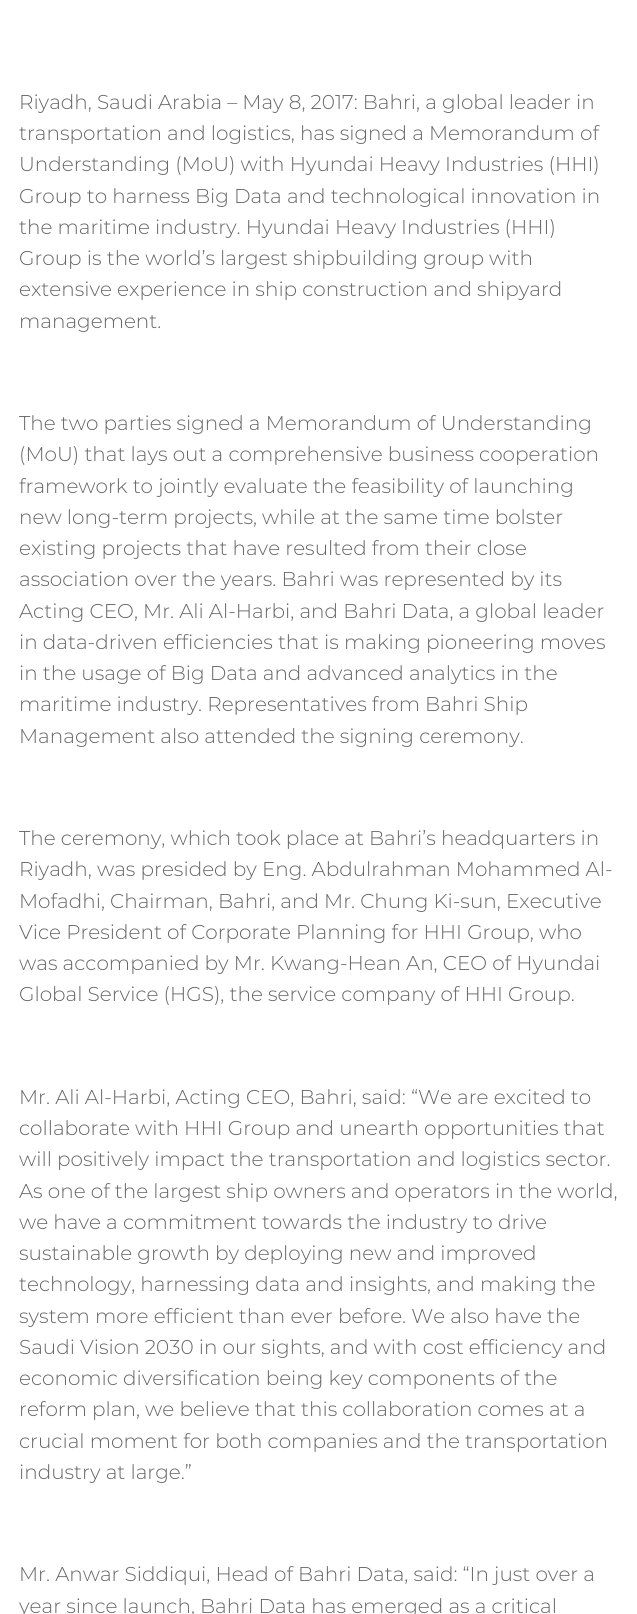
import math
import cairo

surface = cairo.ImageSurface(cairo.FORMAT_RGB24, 637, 1614)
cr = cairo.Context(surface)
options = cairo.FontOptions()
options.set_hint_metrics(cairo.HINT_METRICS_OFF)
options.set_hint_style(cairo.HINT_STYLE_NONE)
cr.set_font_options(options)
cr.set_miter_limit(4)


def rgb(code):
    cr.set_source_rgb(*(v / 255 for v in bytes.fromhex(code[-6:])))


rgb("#ffffff")
cr.paint()
cr.select_font_face("Montserrat Light")
cr.set_font_size(20)
rgb("#666666")
for x, y, s in [
    (19, 109, "Riyadh, Saudi Arabia – May 8, 2017: Bahri, a global leader in"),
    (19, 140, "transportation and logistics, has signed a Memorandum of"),
    (19, 171, "Understanding (MoU) with Hyundai Heavy Industries (HHI)"),
    (19, 203, "Group to harness Big Data and technological innovation in"),
    (19, 234, "the maritime industry. Hyundai Heavy Industries (HHI)"),
    (19, 265, "Group is the world’s largest shipbuilding group with"),
    (19, 296, "extensive experience in ship construction and shipyard"),
    (19, 328, "management."),
    (19, 430, "The two parties signed a Memorandum of Understanding"),
    (19, 461, "(MoU) that lays out a comprehensive business cooperation"),
    (19, 493, "framework to jointly evaluate the feasibility of launching"),
    (19, 524, "new long-term projects, while at the same time bolster"),
    (19, 555, "existing projects that have resulted from their close"),
    (19, 586, "association over the years. Bahri was represented by its"),
    (19, 618, "Acting CEO, Mr. Ali Al-Harbi, and Bahri Data, a global leader"),
    (19, 649, "in data-driven efficiencies that is making pioneering moves"),
    (19, 680, "in the usage of Big Data and advanced analytics in the"),
    (19, 711, "maritime industry. Representatives from Bahri Ship"),
    (19, 743, "Management also attended the signing ceremony."),
    (19, 845, "The ceremony, which took place at Bahri’s headquarters in"),
    (19, 876, "Riyadh, was presided by Eng. Abdulrahman Mohammed Al-"),
    (19, 908, "Mofadhi, Chairman, Bahri, and Mr. Chung Ki-sun, Executive"),
    (19, 939, "Vice President of Corporate Planning for HHI Group, who"),
    (19, 970, "was accompanied by Mr. Kwang-Hean An, CEO of Hyundai"),
    (19, 1001, "Global Service (HGS), the service company of HHI Group."),
    (19, 1104, "Mr. Ali Al-Harbi, Acting CEO, Bahri, said: “We are excited to"),
    (19, 1135, "collaborate with HHI Group and unearth opportunities that"),
    (19, 1166, "will positively impact the transportation and logistics sector."),
    (19, 1198, "As one of the largest ship owners and operators in the world,"),
    (19, 1229, "we have a commitment towards the industry to drive"),
    (19, 1260, "sustainable growth by deploying new and improved"),
    (19, 1291, "technology, harnessing data and insights, and making the"),
    (19, 1323, "system more efficient than ever before. We also have the"),
    (19, 1354, "Saudi Vision 2030 in our sights, and with cost efficiency and"),
    (19, 1385, "economic diversification being key components of the"),
    (19, 1416, "reform plan, we believe that this collaboration comes at a"),
    (19, 1448, "crucial moment for both companies and the transportation"),
    (19, 1479, "industry at large.”"),
    (19, 1581, "Mr. Anwar Siddiqui, Head of Bahri Data, said: “In just over a"),
    (19, 1613, "year since launch, Bahri Data has emerged as a critical"),
]:
    cr.move_to(x, y)
    cr.show_text(s)
surface.write_to_png("page.png")
